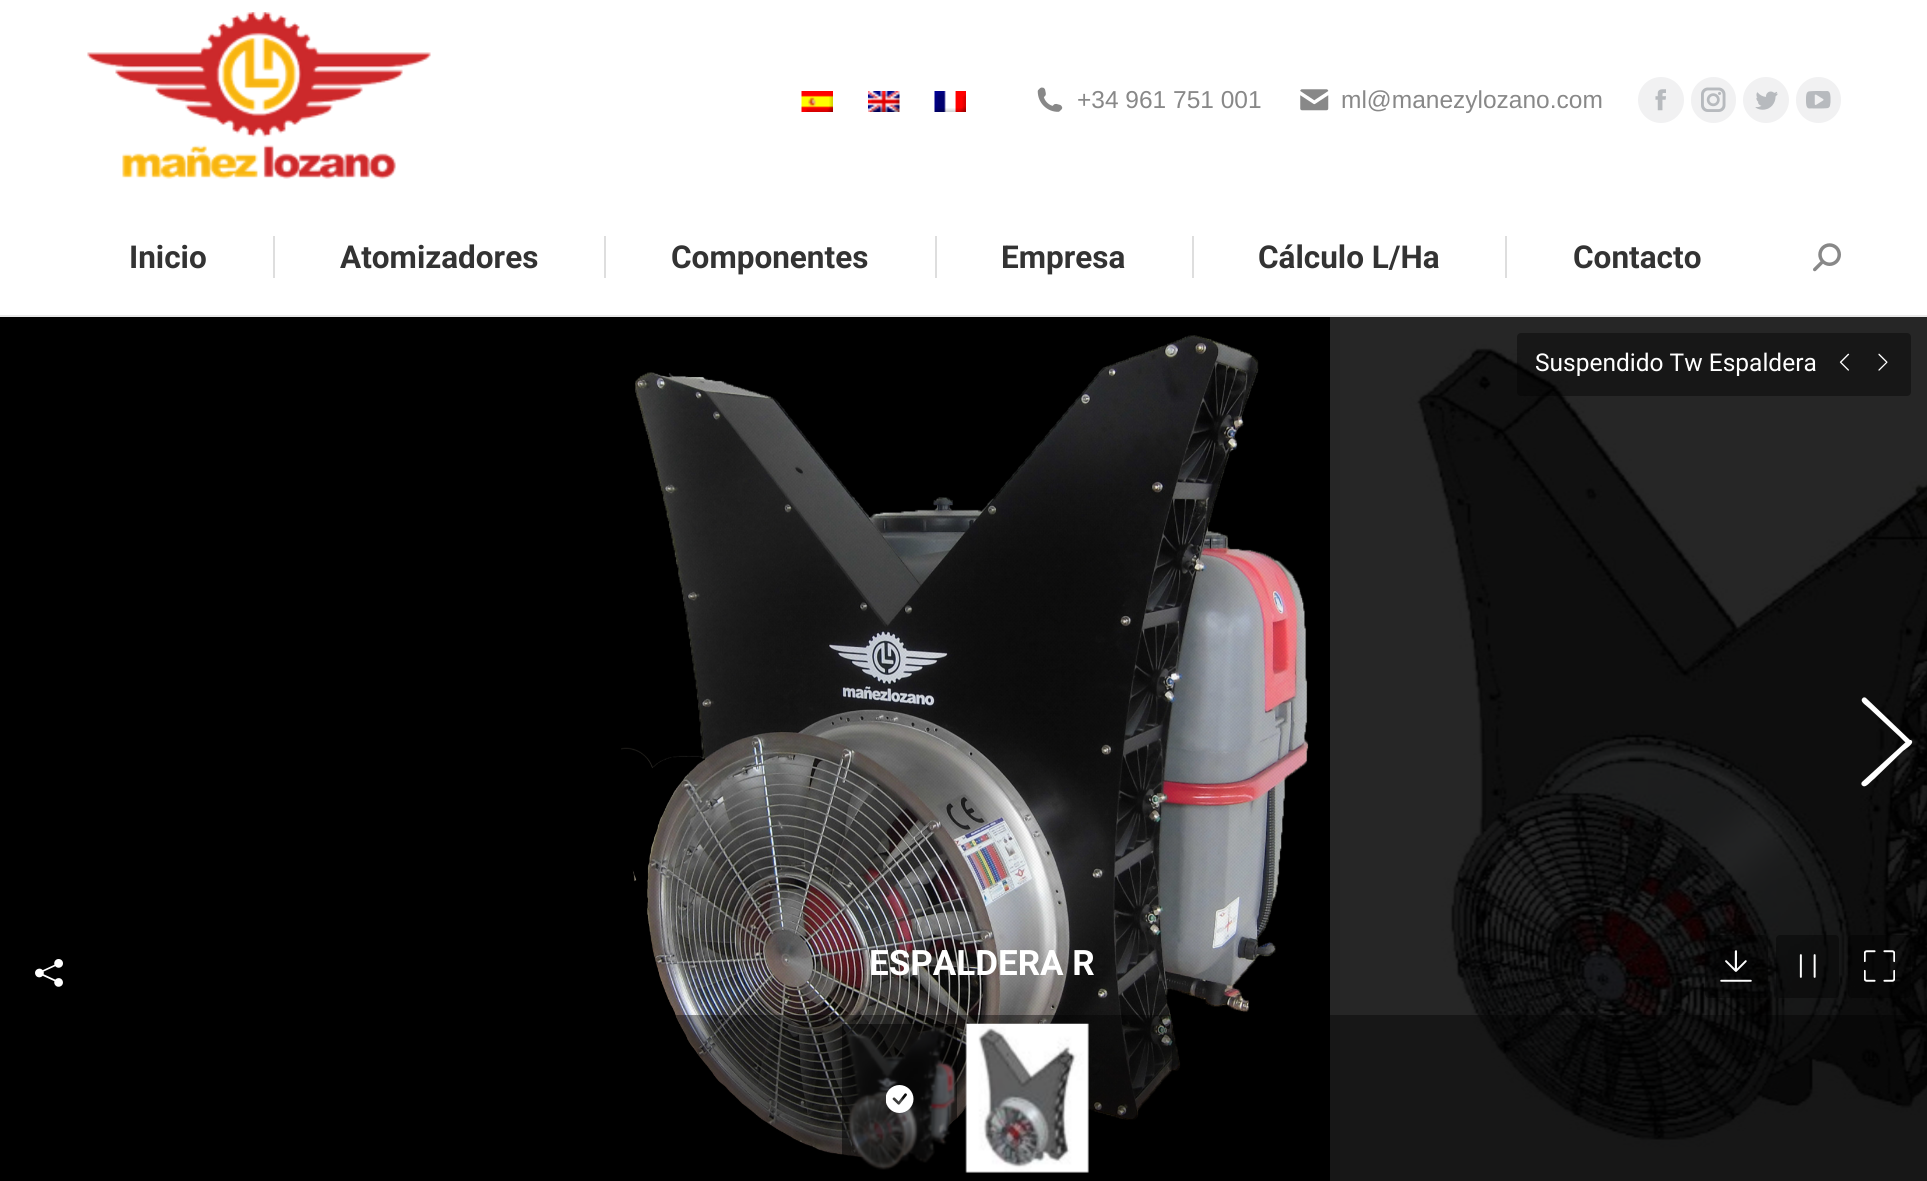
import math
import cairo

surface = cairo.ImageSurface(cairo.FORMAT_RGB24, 1927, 1181)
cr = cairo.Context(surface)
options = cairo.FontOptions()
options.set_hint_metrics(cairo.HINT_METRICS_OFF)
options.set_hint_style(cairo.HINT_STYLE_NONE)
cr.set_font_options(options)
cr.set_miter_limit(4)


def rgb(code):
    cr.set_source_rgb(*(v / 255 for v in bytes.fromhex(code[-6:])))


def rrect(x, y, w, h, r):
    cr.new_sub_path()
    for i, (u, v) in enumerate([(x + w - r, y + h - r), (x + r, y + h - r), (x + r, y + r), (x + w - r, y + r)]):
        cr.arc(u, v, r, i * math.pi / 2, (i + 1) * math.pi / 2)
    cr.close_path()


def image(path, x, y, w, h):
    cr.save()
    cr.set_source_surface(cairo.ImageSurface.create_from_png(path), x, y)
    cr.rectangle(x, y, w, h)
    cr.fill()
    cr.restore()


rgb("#000000")
cr.paint()
rgb("#ffffff")
cr.rectangle(0, 0, 1927, 315)
cr.fill()
rgb("#e9e9e9")
cr.rectangle(0, 315, 1927, 2)
cr.fill()
image("img/1.png", 87, 12, 344, 167)
image("img/2.png", 801, 91, 32, 21)
image("img/3.png", 868, 91, 32, 21)
image("img/4.png", 934, 91, 32, 21)
image("img/5.png", 1037, 87, 26, 25)
image("img/6.png", 1300, 89, 29, 22)
rgb("#f1f1f2")
cr.arc(1661, 100, 23, 0, 2 * math.pi)
cr.fill()
image("img/7.png", 1655, 89, 11, 22)
rrect(1691, 77, 45, 46, 22.5)
cr.fill()
image("img/8.png", 1701, 87, 25, 25)
cr.arc(1766, 100, 23, 0, 2 * math.pi)
cr.fill()
image("img/9.png", 1755, 91, 23, 19)
rrect(1796, 77, 45, 46, 22.5)
cr.fill()
image("img/10.png", 1806, 91, 25, 18)
for x, y, w, h, color in [
    (273, 236, 2, 42, "#dedede"),
    (604, 236, 2, 42, "#dedede"),
    (935, 236, 2, 42, "#dedede"),
    (1192, 236, 2, 42, "#dedede"),
    (1505, 236, 2, 42, "#dedede"),
]:
    rgb(color)
    cr.rectangle(x, y, w, h)
    cr.fill()
image("img/11.png", 1813, 243, 28, 29)
image("img/12.png", 621, 335, 688, 822)
image("img/13.png", 1330, 317, 597, 864)
image("img/14.png", 634, 342, 674, 814)
cr.set_source_rgba(0, 0, 0, 0.4)
rrect(1517, 333, 394, 63, 4)
cr.fill()
image("img/15.png", 1839, 353, 11, 18)
image("img/16.png", 1878, 353, 10, 18)
rgb("#ffffff")
cr.new_path()
cr.move_to(1866, 698)
cr.line_to(1911, 741)
cr.line_to(1911, 743)
cr.curve_to(1909, 747, 1904, 741, 1900, 737)
cr.line_to(1870, 709)
cr.curve_to(1867, 706, 1860, 702, 1862, 699)
cr.curve_to(1863, 697, 1865, 697, 1866, 698)
cr.close_path()
cr.fill()
cr.new_path()
cr.move_to(1862, 782)
cr.line_to(1908, 740)
cr.line_to(1911, 740)
cr.curve_to(1915, 743, 1908, 747, 1903, 751)
cr.line_to(1874, 779)
cr.curve_to(1871, 781, 1866, 788, 1863, 786)
cr.curve_to(1861, 785, 1861, 783, 1862, 782)
cr.close_path()
cr.fill()
image("img/17.png", 35, 959, 28, 28)
cr.set_source_rgba(0, 0, 0, 0.4)
rrect(1705, 935, 63, 63, 4)
cr.fill()
image("img/18.png", 1720, 950, 32, 32)
rrect(1776, 935, 63, 63, 4)
cr.fill()
image("img/19.png", 1799, 954, 17, 24)
rrect(1848, 935, 63, 63, 4)
cr.fill()
image("img/20.png", 1864, 950, 31, 32)
cr.rectangle(675, 1015, 1252, 166)
cr.fill()
image("img/21.png", 846, 1026, 110, 144)
cr.set_source_rgba(0, 0, 0, 0.5)
cr.rectangle(842, 1024, 115, 146)
cr.fill()
image("img/22.png", 886, 1085, 28, 28)
image("img/23.png", 965, 1023, 124, 150)
cr.select_font_face("Liberation Sans")
cr.set_font_size(24.5)
rgb("#888888")
cr.move_to(1077, 108)
cr.show_text("+34 961 751 001")
cr.move_to(1341, 108)
cr.show_text("ml@manezylozano.com")
cr.select_font_face("Roboto", cairo.FONT_SLANT_NORMAL, cairo.FONT_WEIGHT_BOLD)
cr.set_font_size(31.5)
rgb("#333333")
for x, y, s in [
    (129, 268, "Inicio"),
    (340, 268, "Atomizadores"),
    (671, 268, "Componentes"),
    (1001, 268, "Empresa"),
    (1258, 268, "Cálculo L/Ha"),
    (1573, 268, "Contacto"),
]:
    cr.move_to(x, y)
    cr.show_text(s)
cr.select_font_face("Roboto")
cr.set_font_size(24.5)
rgb("#ffffff")
cr.move_to(1535, 371)
cr.show_text("Suspendido Tw Espaldera")
cr.select_font_face("Roboto", cairo.FONT_SLANT_NORMAL, cairo.FONT_WEIGHT_BOLD)
cr.set_font_size(35)
cr.move_to(869, 975)
cr.show_text("ESPALDERA R")
surface.write_to_png("page.png")
